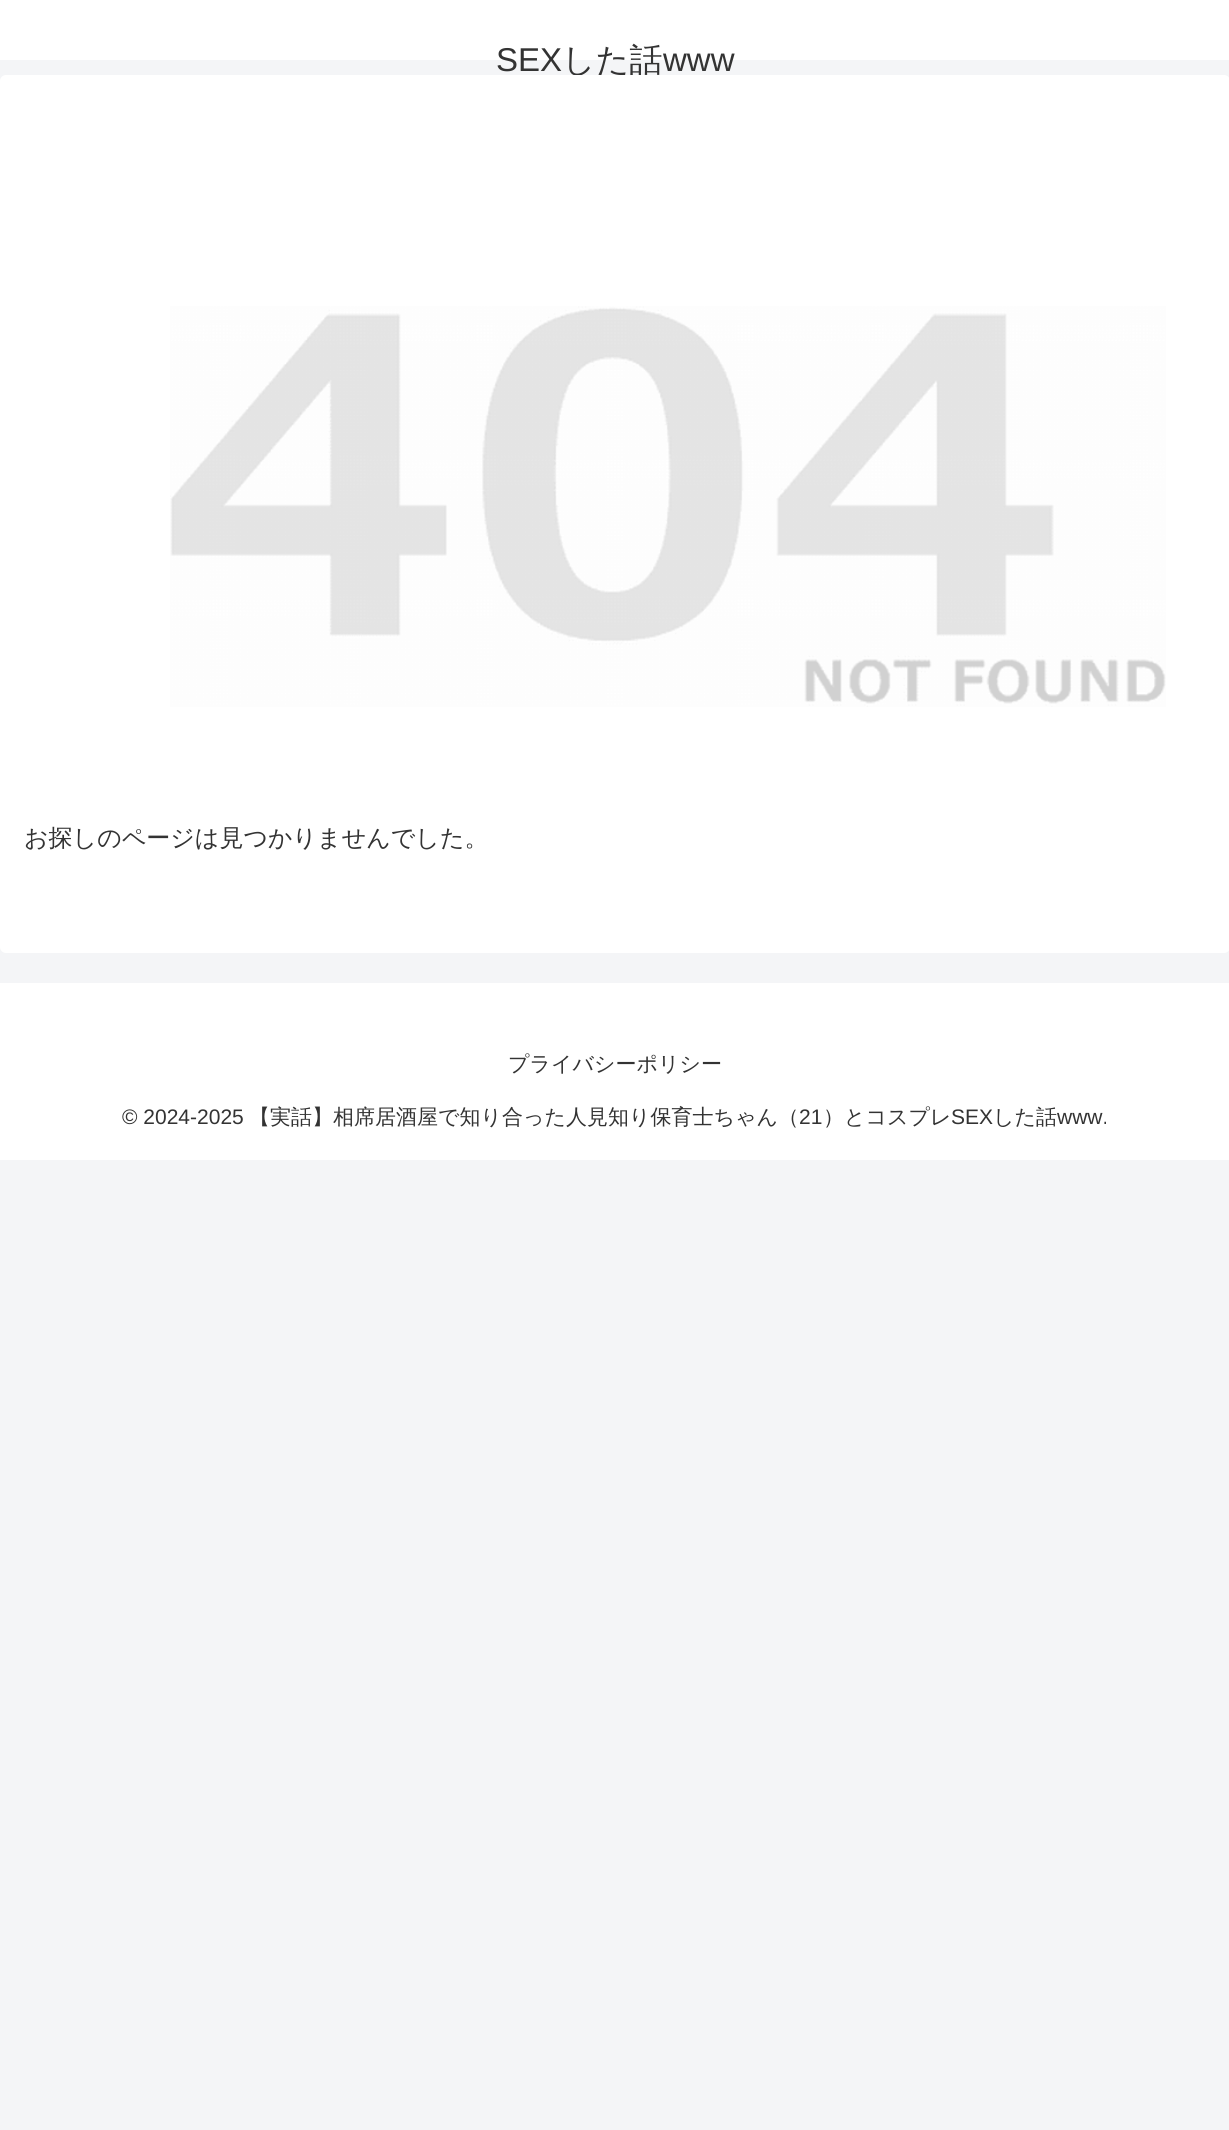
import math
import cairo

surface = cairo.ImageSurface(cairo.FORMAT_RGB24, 1229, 2130)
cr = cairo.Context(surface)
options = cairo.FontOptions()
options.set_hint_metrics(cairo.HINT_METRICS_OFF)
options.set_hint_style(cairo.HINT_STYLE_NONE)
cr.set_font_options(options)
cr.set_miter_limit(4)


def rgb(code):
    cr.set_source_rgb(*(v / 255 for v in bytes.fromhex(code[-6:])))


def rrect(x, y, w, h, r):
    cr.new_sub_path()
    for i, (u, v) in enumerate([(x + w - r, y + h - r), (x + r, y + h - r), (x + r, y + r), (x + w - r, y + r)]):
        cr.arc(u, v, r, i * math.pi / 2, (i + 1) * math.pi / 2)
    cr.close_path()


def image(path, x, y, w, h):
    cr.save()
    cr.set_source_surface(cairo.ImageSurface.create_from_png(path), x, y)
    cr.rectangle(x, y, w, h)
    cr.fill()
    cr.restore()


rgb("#f4f5f7")
cr.paint()
rgb("#ffffff")
cr.rectangle(0, 0, 1229, 60)
cr.fill()
cr.rectangle(0, 983, 1229, 177)
cr.fill()
cr.select_font_face("Liberation Sans")
cr.set_font_size(33)
rgb("#333333")
cr.move_to(496, 71)
cr.show_text("SEX")
cr.select_font_face("WenQuanYi Zen Hei Medium")
cr.move_to(562, 71)
cr.show_text("した話")
cr.select_font_face("Liberation Sans")
cr.move_to(663, 71)
cr.show_text("www")
rgb("#ffffff")
rrect(0, 75, 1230, 878, 6)
cr.fill()
image("img/1.png", 170, 306, 996, 401)
cr.select_font_face("WenQuanYi Zen Hei Medium")
cr.set_font_size(24)
rgb("#333333")
cr.move_to(24, 846)
cr.show_text("お探しのページは見つかりませんでした。")
cr.set_font_size(21)
cr.move_to(508, 1071)
cr.show_text("プライバシーポリシー")
cr.select_font_face("Liberation Sans")
cr.move_to(122, 1124)
cr.show_text("© 2024-2025")
cr.select_font_face("WenQuanYi Zen Hei Medium")
cr.move_to(249, 1124)
cr.show_text("【実話】相席居酒屋で知り合った人見知り保育士ちゃん（")
cr.select_font_face("Liberation Sans")
cr.move_to(799, 1124)
cr.show_text("21")
cr.select_font_face("WenQuanYi Zen Hei Medium")
cr.move_to(823, 1124)
cr.show_text("）とコスプレ")
cr.select_font_face("Liberation Sans")
cr.move_to(951, 1124)
cr.show_text("SEX")
cr.select_font_face("WenQuanYi Zen Hei Medium")
cr.move_to(993, 1124)
cr.show_text("した話")
cr.select_font_face("Liberation Sans")
cr.move_to(1057, 1124)
cr.show_text("www.")
surface.write_to_png("page.png")
